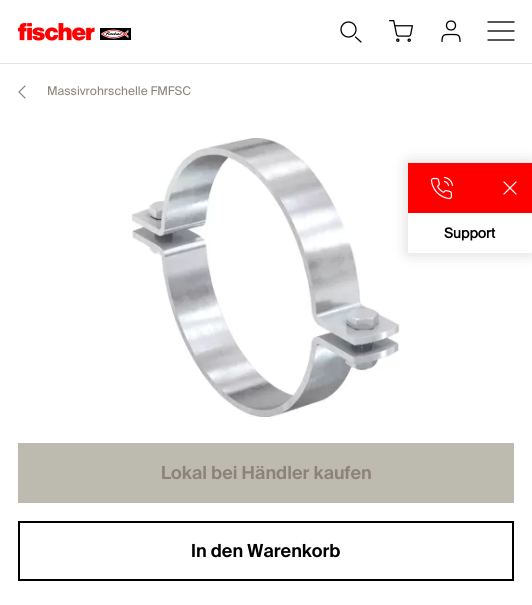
import math
import cairo

surface = cairo.ImageSurface(cairo.FORMAT_RGB24, 532, 605)
cr = cairo.Context(surface)
options = cairo.FontOptions()
options.set_hint_metrics(cairo.HINT_METRICS_OFF)
options.set_hint_style(cairo.HINT_STYLE_NONE)
cr.set_font_options(options)
cr.set_miter_limit(4)


def rgb(code):
    cr.set_source_rgb(*(v / 255 for v in bytes.fromhex(code[-6:])))


def rrect(x, y, w, h, r):
    cr.new_sub_path()
    for i, (u, v) in enumerate([(x + w - r, y + h - r), (x + r, y + h - r), (x + r, y + r), (x + w - r, y + r)]):
        cr.arc(u, v, r, i * math.pi / 2, (i + 1) * math.pi / 2)
    cr.close_path()


def soft_shadow(x, y, w, h, r, blur, alpha):
    cr.push_group_with_content(cairo.CONTENT_ALPHA)
    cr.set_operator(cairo.OPERATOR_SOURCE)
    for i in range(15, -16, -2):
        e = blur * i / 6
        if min(w, h) + 2 * e > 0:
            cr.set_source_rgba(0, 0, 0, alpha * math.erfc((i - 1) / 8.5) / 2)
            rrect(x - e, y - e, w + 2 * e, h + 2 * e, max(0, min(r + e + blur * .6, min(w, h) / 2 + e)))
            cr.fill()
    cr.mask(cr.pop_group())


def image(path, x, y, w, h):
    cr.save()
    cr.set_source_surface(cairo.ImageSurface.create_from_png(path), x, y)
    cr.rectangle(x, y, w, h)
    cr.fill()
    cr.restore()


rgb("#ffffff")
cr.paint()
rgb("#e5e3df")
cr.rectangle(0, 63, 532, 1)
cr.fill()
image("img/1.png", 18, 23, 113, 18)
cr.arc(348.5, 29.5, 7.5, 0, 2 * math.pi)
rgb("#000000")
cr.set_line_width(1.3)
cr.stroke()
cr.new_path()
cr.move_to(361, 42)
cr.line_to(355.5, 37)
cr.set_line_cap(cairo.LINE_CAP_ROUND)
cr.stroke()
image("img/2.png", 389, 20, 24, 22)
cr.new_path()
cr.move_to(460, 41.5)
cr.curve_to(460, 34, 457.5, 34.5, 451, 34.5)
cr.curve_to(444.5, 34.5, 442, 34, 442, 41.5)
cr.set_line_join(cairo.LINE_JOIN_ROUND)
cr.stroke()
cr.arc(451, 25.5, 4.5, 0, 2 * math.pi)
cr.set_line_cap(cairo.LINE_CAP_BUTT)
cr.set_line_join(cairo.LINE_JOIN_MITER)
cr.stroke()
cr.new_path()
cr.move_to(488, 31)
cr.line_to(514, 31)
cr.move_to(488, 22)
cr.line_to(514, 22)
cr.move_to(488, 40)
cr.line_to(514, 40)
cr.set_line_cap(cairo.LINE_CAP_ROUND)
cr.set_line_join(cairo.LINE_JOIN_ROUND)
cr.stroke()
cr.new_path()
cr.move_to(25, 86)
cr.line_to(19, 92)
cr.line_to(25, 98)
rgb("#8c827a")
cr.set_line_width(1.2)
cr.stroke()
image("img/4.png", 132, 138, 268, 279)
cr.save()
cr.set_fill_rule(cairo.FILL_RULE_EVEN_ODD)
cr.new_path()
cr.move_to(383, 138)
cr.line_to(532, 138)
cr.line_to(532, 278)
cr.line_to(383, 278)
cr.close_path()
cr.move_to(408, 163)
cr.line_to(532, 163)
cr.line_to(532, 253)
cr.line_to(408, 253)
cr.close_path()
cr.clip()
rgb("#000000")
soft_shadow(408, 163, 124, 90, 0, 8, 0.16)
cr.restore()
rgb("#ff0000")
cr.rectangle(408, 163, 124, 50)
cr.fill()
image("img/3.png", 430, 176, 24, 24)
cr.new_path()
cr.move_to(516, 182)
cr.line_to(504, 194)
cr.move_to(504, 182)
cr.line_to(516, 194)
rgb("#ffffff")
cr.stroke()
rgb("#bdbab0")
cr.rectangle(18, 443, 496, 60)
cr.fill()
cr.rectangle(19, 522, 494, 58)
rgb("#000000")
cr.set_line_width(2)
cr.set_line_cap(cairo.LINE_CAP_BUTT)
cr.set_line_join(cairo.LINE_JOIN_MITER)
cr.stroke()
cr.select_font_face("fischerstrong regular")
cr.set_font_size(12)
rgb("#8c827a")
cr.move_to(47, 95)
cr.show_text("Massivrohrschelle FMFSC")
cr.select_font_face("fischerstrong regular", cairo.FONT_SLANT_NORMAL, cairo.FONT_WEIGHT_BOLD)
cr.set_font_size(14)
rgb("#000000")
cr.move_to(444, 238)
cr.show_text("Support")
cr.select_font_face("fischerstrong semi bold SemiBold")
cr.set_font_size(18)
rgb("#8c827a")
cr.move_to(161, 479)
cr.show_text("Lokal bei Händler kaufen")
rgb("#000000")
cr.move_to(191, 557)
cr.show_text("In den Warenkorb")
surface.write_to_png("page.png")
